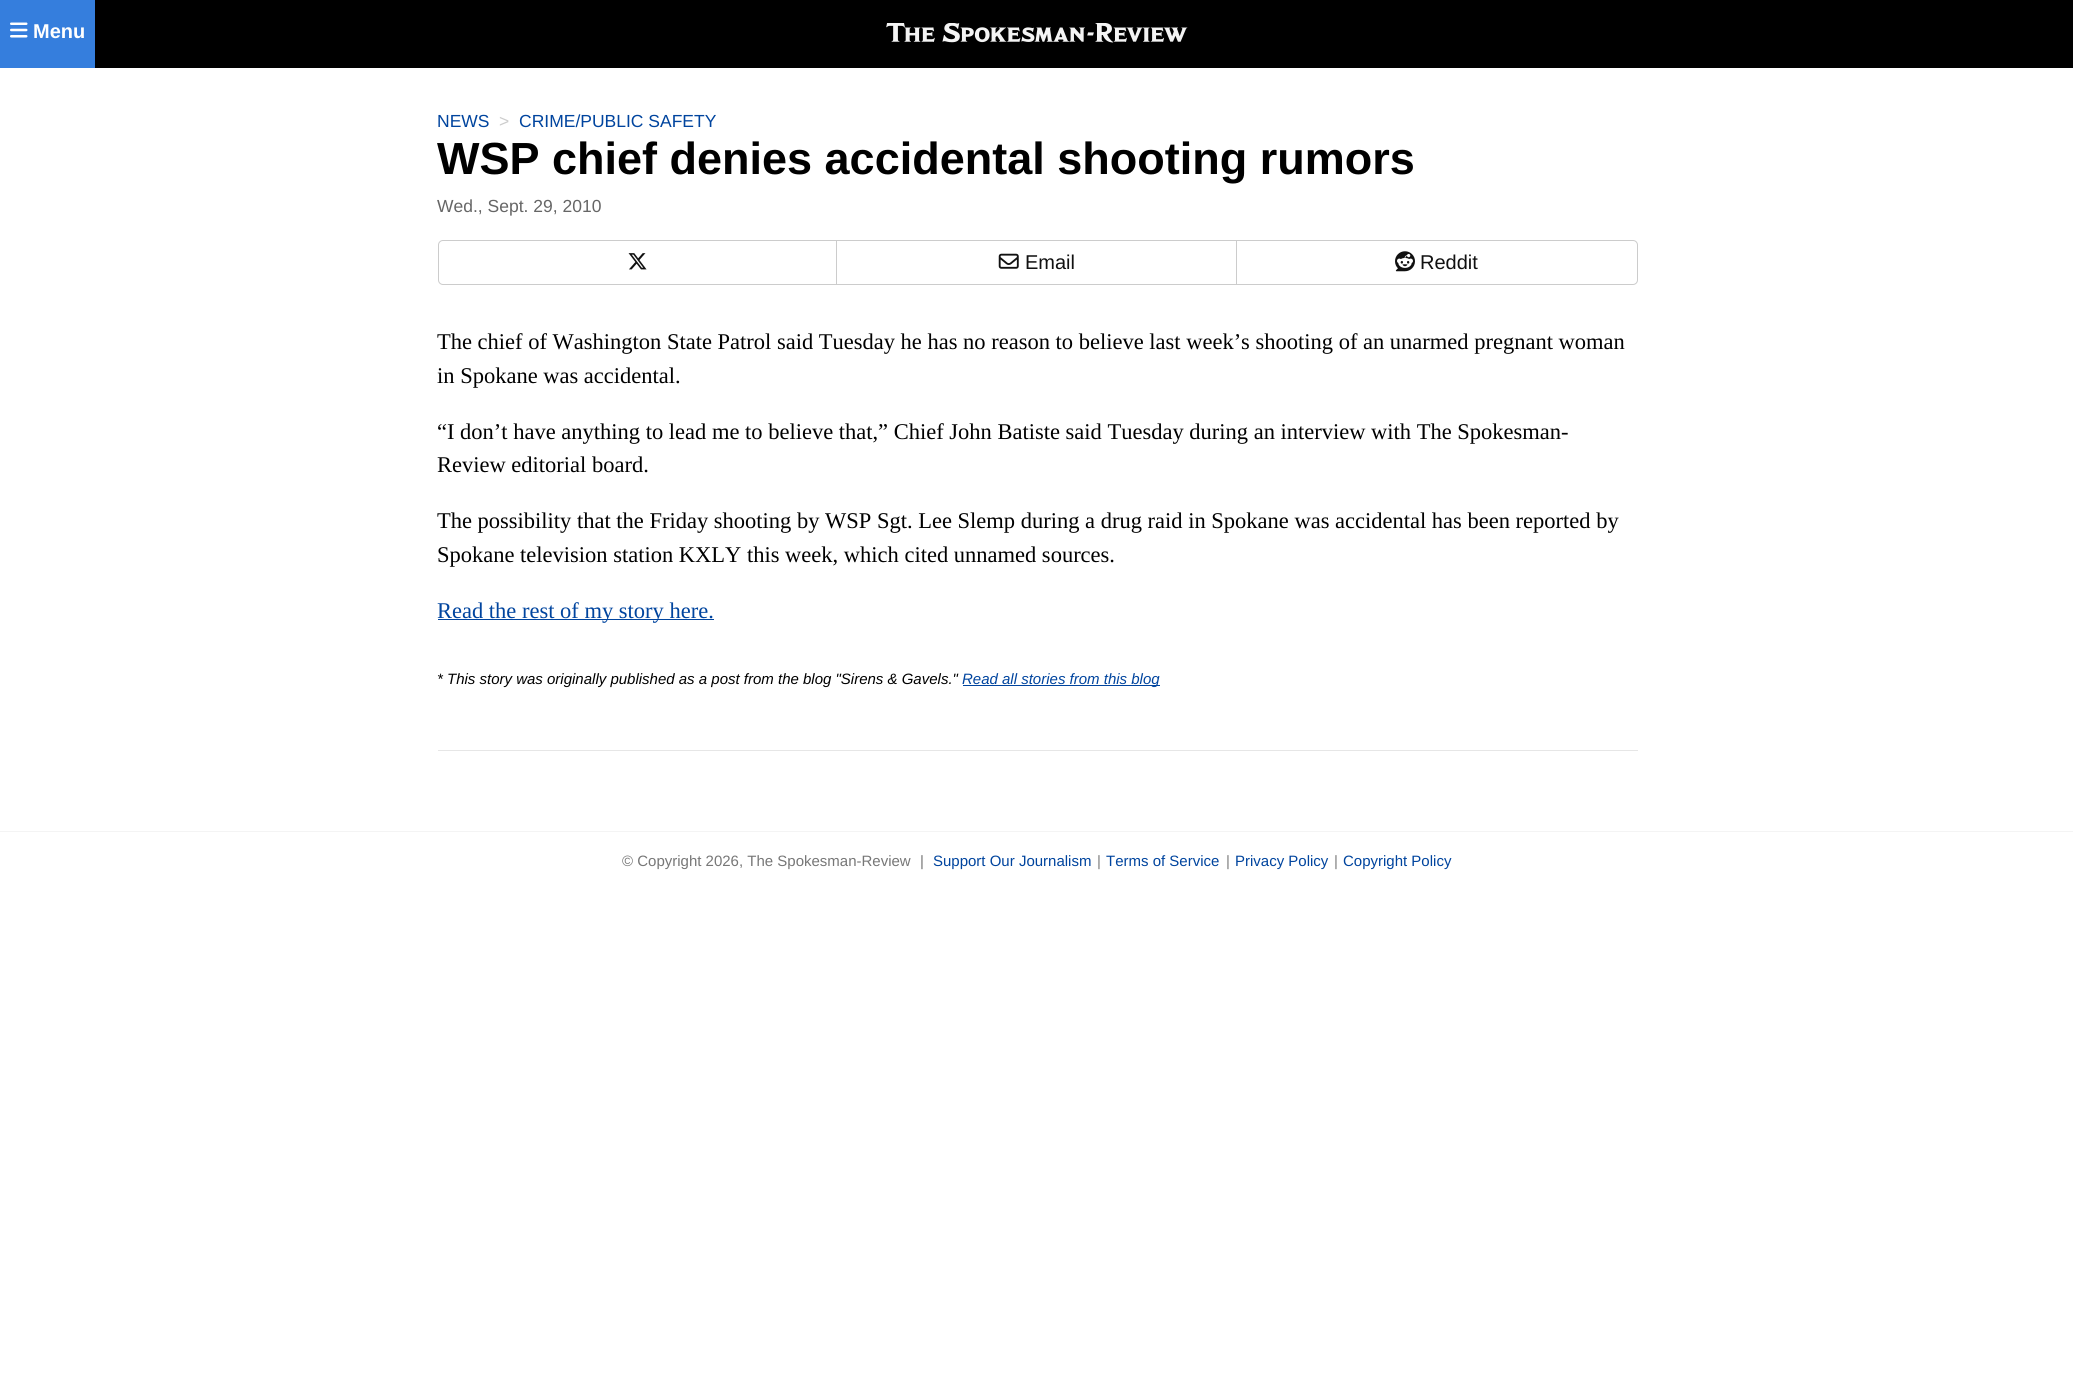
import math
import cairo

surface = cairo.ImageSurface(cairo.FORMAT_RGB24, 2073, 1384)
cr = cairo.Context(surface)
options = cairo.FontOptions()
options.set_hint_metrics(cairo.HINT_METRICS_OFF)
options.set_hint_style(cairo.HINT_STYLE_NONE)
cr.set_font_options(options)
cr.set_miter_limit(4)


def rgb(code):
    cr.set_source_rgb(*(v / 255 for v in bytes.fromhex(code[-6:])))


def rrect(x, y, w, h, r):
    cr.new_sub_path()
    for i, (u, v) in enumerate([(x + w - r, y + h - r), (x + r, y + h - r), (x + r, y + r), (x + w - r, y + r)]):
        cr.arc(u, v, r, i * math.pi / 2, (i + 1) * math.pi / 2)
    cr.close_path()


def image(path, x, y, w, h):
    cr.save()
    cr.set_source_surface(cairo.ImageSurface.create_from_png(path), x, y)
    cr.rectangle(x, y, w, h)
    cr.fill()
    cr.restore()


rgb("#ffffff")
cr.paint()
rgb("#000000")
cr.rectangle(95, 0, 1978, 68)
cr.fill()
rgb("#357edd")
cr.rectangle(0, 0, 95, 68)
cr.fill()
image("img/1.png", 10, 22, 18, 16)
image("img/2.png", 886, 23, 302, 20)
rgb("#e6e6e6")
cr.rectangle(438, 750, 1200, 1)
cr.fill()
rrect(438.5, 240.5, 1199, 44, 4.5)
rgb("#cccccc")
cr.set_line_width(1)
cr.stroke()
cr.rectangle(836, 241, 1, 43)
cr.fill()
image("img/3.png", 628, 253, 19, 17)
cr.rectangle(1236, 241, 1, 43)
cr.fill()
image("img/4.png", 998, 253, 21, 16)
image("img/5.png", 1395, 251, 20, 21)
for x, y, w, h, color in [
    (438, 619, 276, 1, "#00449e"),
    (963, 685, 197, 1, "#00449e"),
    (0, 831, 2073, 1, "#f4f4f4"),
]:
    rgb(color)
    cr.rectangle(x, y, w, h)
    cr.fill()
cr.select_font_face("Liberation Sans", cairo.FONT_SLANT_NORMAL, cairo.FONT_WEIGHT_BOLD)
cr.set_font_size(20)
rgb("#ffffff")
cr.move_to(33, 38)
cr.show_text("Menu")
cr.select_font_face("Liberation Sans")
cr.set_font_size(17.5)
rgb("#00449e")
cr.move_to(437, 127)
cr.show_text("NEWS")
rgb("#cccccc")
cr.move_to(499, 127)
cr.show_text(">")
rgb("#00449e")
cr.move_to(519, 127)
cr.show_text("CRIME/PUBLIC SAFETY")
cr.select_font_face("Liberation Sans", cairo.FONT_SLANT_NORMAL, cairo.FONT_WEIGHT_BOLD)
cr.set_font_size(45)
rgb("#000000")
cr.move_to(437, 174)
cr.show_text("WSP chief denies accidental shooting rumors")
cr.select_font_face("Liberation Sans")
cr.set_font_size(17.5)
rgb("#666666")
cr.move_to(437, 212)
cr.show_text("Wed., Sept. 29, 2010")
cr.set_font_size(20)
rgb("#111111")
cr.move_to(1025, 269)
cr.show_text("Email")
cr.move_to(1420, 269)
cr.show_text("Reddit")
cr.select_font_face("Liberation Serif")
cr.set_font_size(22.5)
rgb("#000000")
for x, y, s in [
    (437, 349, "The chief of Washington State Patrol said Tuesday he has no reason to believe last week’s shooting of an unarmed pregnant woman"),
    (437, 383, "in Spokane was accidental."),
    (437, 439, "“I don’t have anything to lead me to believe that,” Chief John Batiste said Tuesday during an interview with The Spokesman-"),
    (437, 472, "Review editorial board."),
    (437, 528, "The possibility that the Friday shooting by WSP Sgt. Lee Slemp during a drug raid in Spokane was accidental has been reported by"),
    (437, 562, "Spokane television station KXLY this week, which cited unnamed sources."),
]:
    cr.move_to(x, y)
    cr.show_text(s)
rgb("#00449e")
cr.move_to(437, 618)
cr.show_text("Read the rest of my story here.")
cr.select_font_face("Liberation Sans", cairo.FONT_SLANT_ITALIC)
cr.set_font_size(15)
rgb("#000000")
cr.move_to(437, 684)
cr.show_text("* This story was originally published as a post from the blog \"Sirens & Gavels.\"")
rgb("#00449e")
cr.move_to(962, 684)
cr.show_text("Read all stories from this blog")
cr.select_font_face("Liberation Sans")
rgb("#777777")
cr.move_to(622, 866)
cr.show_text("© Copyright 2026, The Spokesman-Review")
cr.move_to(920, 866)
cr.show_text("|")
rgb("#00449e")
cr.move_to(933, 866)
cr.show_text("Support Our Journalism")
rgb("#808080")
cr.move_to(1097, 866)
cr.show_text("|")
rgb("#00449e")
cr.move_to(1106, 866)
cr.show_text("Terms of Service")
rgb("#808080")
cr.move_to(1226, 866)
cr.show_text("|")
rgb("#00449e")
cr.move_to(1235, 866)
cr.show_text("Privacy Policy")
rgb("#808080")
cr.move_to(1334, 866)
cr.show_text("|")
rgb("#00449e")
cr.move_to(1343, 866)
cr.show_text("Copyright Policy")
surface.write_to_png("page.png")
